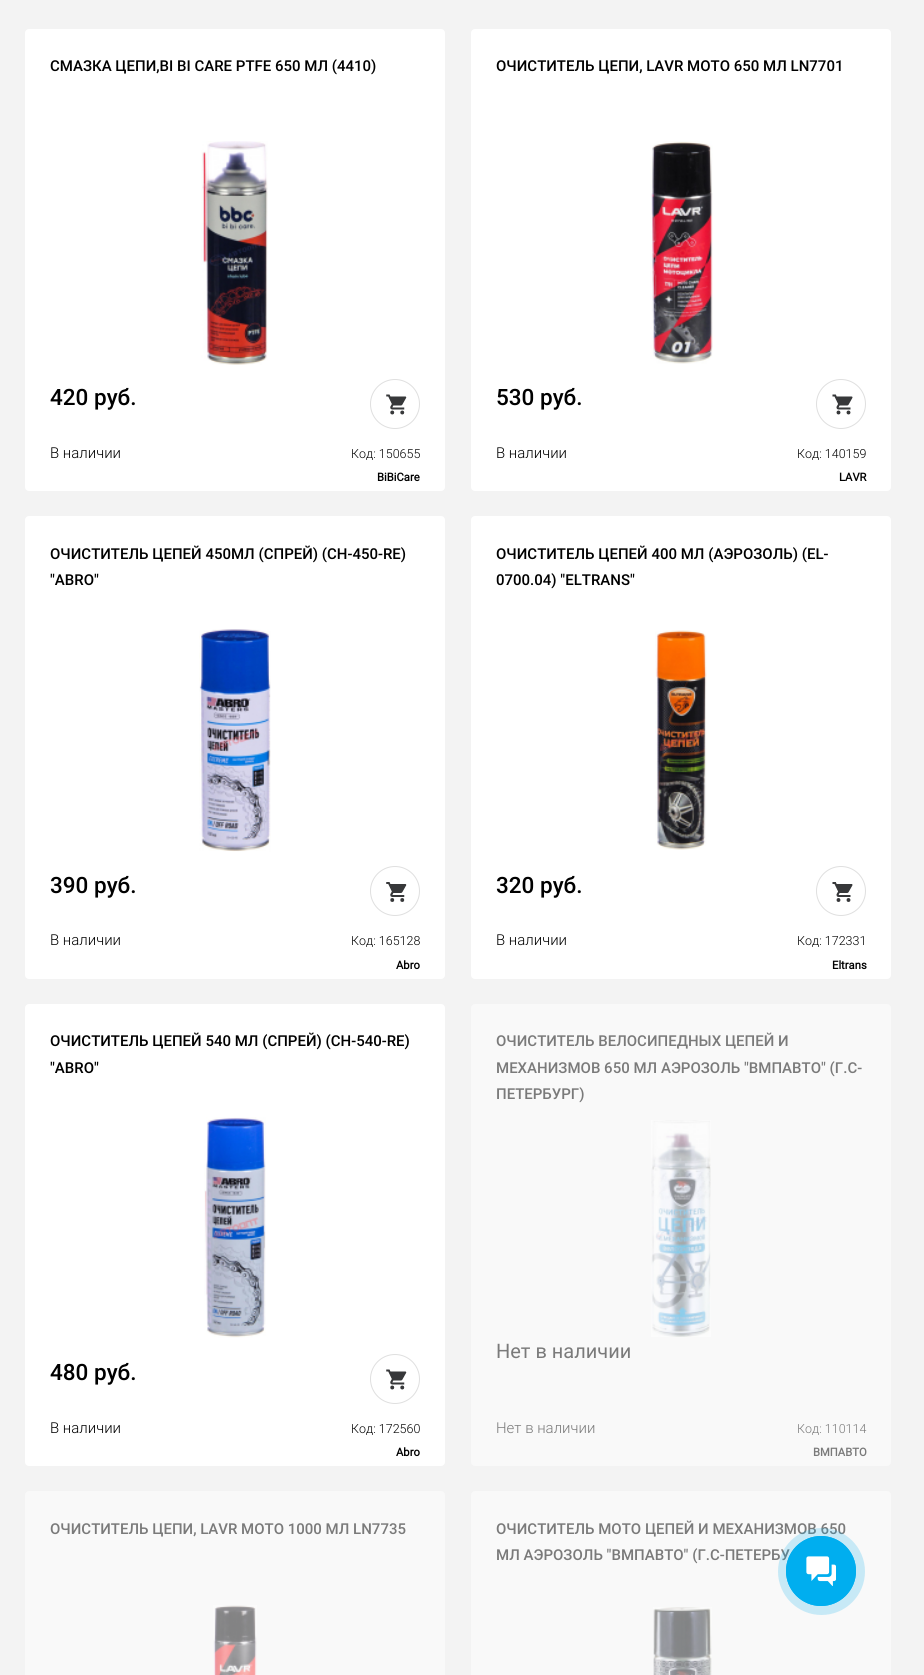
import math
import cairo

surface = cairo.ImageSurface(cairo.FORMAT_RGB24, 924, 1675)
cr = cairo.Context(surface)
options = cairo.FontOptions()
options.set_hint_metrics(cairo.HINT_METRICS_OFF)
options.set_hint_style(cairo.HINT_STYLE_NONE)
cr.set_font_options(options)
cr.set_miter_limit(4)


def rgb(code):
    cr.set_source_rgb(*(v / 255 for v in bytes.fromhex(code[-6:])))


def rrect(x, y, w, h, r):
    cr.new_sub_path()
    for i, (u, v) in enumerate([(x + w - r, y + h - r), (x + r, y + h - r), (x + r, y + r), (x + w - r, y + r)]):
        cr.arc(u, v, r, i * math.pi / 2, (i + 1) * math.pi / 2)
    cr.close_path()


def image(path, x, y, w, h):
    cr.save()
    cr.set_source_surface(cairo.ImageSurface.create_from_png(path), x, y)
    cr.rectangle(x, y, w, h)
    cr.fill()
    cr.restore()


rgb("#f3f3f3")
cr.paint()
rgb("#ffffff")
rrect(25, 29, 420, 462, 4)
cr.fill()
image("img/1.png", 201, 141, 67, 224)
cr.arc(395, 404, 24.5, 0, 2 * math.pi)
rgb("#dfdfdf")
cr.set_line_width(1)
cr.stroke()
image("img/2.png", 386, 394, 21, 21)
rgb("#ffffff")
rrect(471, 29, 420, 462, 4)
cr.fill()
image("img/3.png", 650, 141, 63, 223)
cr.arc(841, 404, 24.5, 0, 2 * math.pi)
rgb("#dfdfdf")
cr.stroke()
image("img/4.png", 832, 394, 21, 21)
rgb("#ffffff")
rrect(25, 516, 420, 463, 4)
cr.fill()
image("img/5.png", 199, 629, 72, 223)
cr.arc(395, 891, 24.5, 0, 2 * math.pi)
rgb("#dfdfdf")
cr.stroke()
image("img/6.png", 386, 882, 21, 20)
rgb("#ffffff")
rrect(471, 516, 420, 463, 4)
cr.fill()
image("img/7.png", 655, 630, 52, 220)
cr.arc(841, 891, 24.5, 0, 2 * math.pi)
rgb("#dfdfdf")
cr.stroke()
image("img/8.png", 832, 882, 21, 20)
rgb("#ffffff")
rrect(25, 1004, 420, 462, 4)
cr.fill()
image("img/9.png", 204, 1117, 62, 221)
cr.arc(395, 1379, 24.5, 0, 2 * math.pi)
rgb("#dfdfdf")
cr.stroke()
image("img/2.png", 386, 1369, 21, 21)
rgb("#f9f9f9")
rrect(471, 1004, 420, 462, 4)
cr.fill()
image("img/10.png", 651, 1120, 60, 217)
rrect(25, 1491, 420, 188, 4)
cr.fill()
image("img/11.png", 213, 1605, 44, 70)
rrect(471, 1491, 420, 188, 4)
cr.fill()
image("img/12.png", 653, 1607, 59, 68)
cr.select_font_face("Roboto Medium")
cr.set_font_size(15)
rgb("#000000")
cr.move_to(50, 71)
cr.show_text("СМАЗКА ЦЕПИ,BI BI CARE PTFE 650 МЛ (4410)")
cr.set_font_size(22.5)
cr.move_to(50, 405)
cr.show_text("420 руб.")
cr.select_font_face("Roboto Light")
cr.set_font_size(15)
cr.move_to(50, 458)
cr.show_text("В наличии")
cr.set_font_size(12.5)
cr.move_to(351, 458)
cr.show_text("Код: 150655")
cr.select_font_face("Roboto", cairo.FONT_SLANT_NORMAL, cairo.FONT_WEIGHT_BOLD)
cr.set_font_size(11.25)
cr.move_to(377, 481)
cr.show_text("BiBiCare")
cr.select_font_face("Roboto Medium")
cr.set_font_size(15)
cr.move_to(496, 71)
cr.show_text("ОЧИСТИТЕЛЬ ЦЕПИ, LAVR MOTO 650 МЛ LN7701")
cr.set_font_size(22.5)
cr.move_to(496, 405)
cr.show_text("530 руб.")
cr.select_font_face("Roboto Light")
cr.set_font_size(15)
cr.move_to(496, 458)
cr.show_text("В наличии")
cr.set_font_size(12.5)
cr.move_to(797, 458)
cr.show_text("Код: 140159")
cr.select_font_face("Roboto", cairo.FONT_SLANT_NORMAL, cairo.FONT_WEIGHT_BOLD)
cr.set_font_size(11.25)
cr.move_to(839, 481)
cr.show_text("LAVR")
cr.select_font_face("Roboto Medium")
cr.set_font_size(15)
cr.move_to(50, 559)
cr.show_text("ОЧИСТИТЕЛЬ ЦЕПЕЙ 450МЛ (СПРЕЙ) (CH-450-RE)")
cr.move_to(50, 585)
cr.show_text("\"ABRO\"")
cr.set_font_size(22.5)
cr.move_to(50, 893)
cr.show_text("390 руб.")
cr.select_font_face("Roboto Light")
cr.set_font_size(15)
cr.move_to(50, 945)
cr.show_text("В наличии")
cr.set_font_size(12.5)
cr.move_to(351, 945)
cr.show_text("Код: 165128")
cr.select_font_face("Roboto", cairo.FONT_SLANT_NORMAL, cairo.FONT_WEIGHT_BOLD)
cr.set_font_size(11.25)
cr.move_to(396, 969)
cr.show_text("Abro")
cr.select_font_face("Roboto Medium")
cr.set_font_size(15)
cr.move_to(496, 559)
cr.show_text("ОЧИСТИТЕЛЬ ЦЕПЕЙ 400 МЛ (АЭРОЗОЛЬ) (EL-")
cr.move_to(496, 585)
cr.show_text("0700.04) \"ELTRANS\"")
cr.set_font_size(22.5)
cr.move_to(496, 893)
cr.show_text("320 руб.")
cr.select_font_face("Roboto Light")
cr.set_font_size(15)
cr.move_to(496, 945)
cr.show_text("В наличии")
cr.set_font_size(12.5)
cr.move_to(797, 945)
cr.show_text("Код: 172331")
cr.select_font_face("Roboto", cairo.FONT_SLANT_NORMAL, cairo.FONT_WEIGHT_BOLD)
cr.set_font_size(11.25)
cr.move_to(832, 969)
cr.show_text("Eltrans")
cr.select_font_face("Roboto Medium")
cr.set_font_size(15)
cr.move_to(50, 1046)
cr.show_text("ОЧИСТИТЕЛЬ ЦЕПЕЙ 540 МЛ (СПРЕЙ) (CH-540-RE)")
cr.move_to(50, 1073)
cr.show_text("\"ABRO\"")
cr.set_font_size(22.5)
cr.move_to(50, 1380)
cr.show_text("480 руб.")
cr.select_font_face("Roboto Light")
cr.set_font_size(15)
cr.move_to(50, 1433)
cr.show_text("В наличии")
cr.set_font_size(12.5)
cr.move_to(351, 1433)
cr.show_text("Код: 172560")
cr.select_font_face("Roboto", cairo.FONT_SLANT_NORMAL, cairo.FONT_WEIGHT_BOLD)
cr.set_font_size(11.25)
cr.move_to(396, 1456)
cr.show_text("Abro")
cr.select_font_face("Roboto Medium")
cr.set_font_size(15)
rgb("#7a7a7a")
for x, y, s in [
    (496, 1046, "ОЧИСТИТЕЛЬ ВЕЛОСИПЕДНЫХ ЦЕПЕЙ И"),
    (496, 1073, "МЕХАНИЗМОВ 650 МЛ АЭРОЗОЛЬ \"ВМПАВТО\" (Г.С-"),
    (496, 1099, "ПЕТЕРБУРГ)"),
]:
    cr.move_to(x, y)
    cr.show_text(s)
cr.select_font_face("Roboto")
cr.set_font_size(20)
cr.move_to(496, 1358)
cr.show_text("Нет в наличии")
cr.select_font_face("Roboto Light")
cr.set_font_size(15)
cr.move_to(496, 1433)
cr.show_text("Нет в наличии")
cr.set_font_size(12.5)
cr.move_to(797, 1433)
cr.show_text("Код: 110114")
cr.select_font_face("Roboto", cairo.FONT_SLANT_NORMAL, cairo.FONT_WEIGHT_BOLD)
cr.set_font_size(11.25)
cr.move_to(813, 1456)
cr.show_text("ВМПАВТО")
cr.select_font_face("Roboto Medium")
cr.set_font_size(15)
for x, y, s in [
    (50, 1534, "ОЧИСТИТЕЛЬ ЦЕПИ, LAVR MOTO 1000 МЛ LN7735"),
    (496, 1534, "ОЧИСТИТЕЛЬ МОТО ЦЕПЕЙ И МЕХАНИЗМОВ 650"),
    (496, 1560, "МЛ АЭРОЗОЛЬ \"ВМПАВТО\" (Г.С-ПЕТЕРБУ"),
]:
    cr.move_to(x, y)
    cr.show_text(s)
cr.set_source_rgba(0, 0.682, 0.937, 0.2)
cr.new_path()
cr.arc(821.5, 1571.5, 43.5, 0, 2 * math.pi)
cr.fill()
cr.arc(821, 1571, 34.5, 0, 2 * math.pi)
rgb("#00aeef")
cr.stroke()
cr.arc(821, 1571, 35, 0, 2 * math.pi)
cr.fill()
image("img/13.png", 806, 1556, 30, 30)
surface.write_to_png("page.png")
